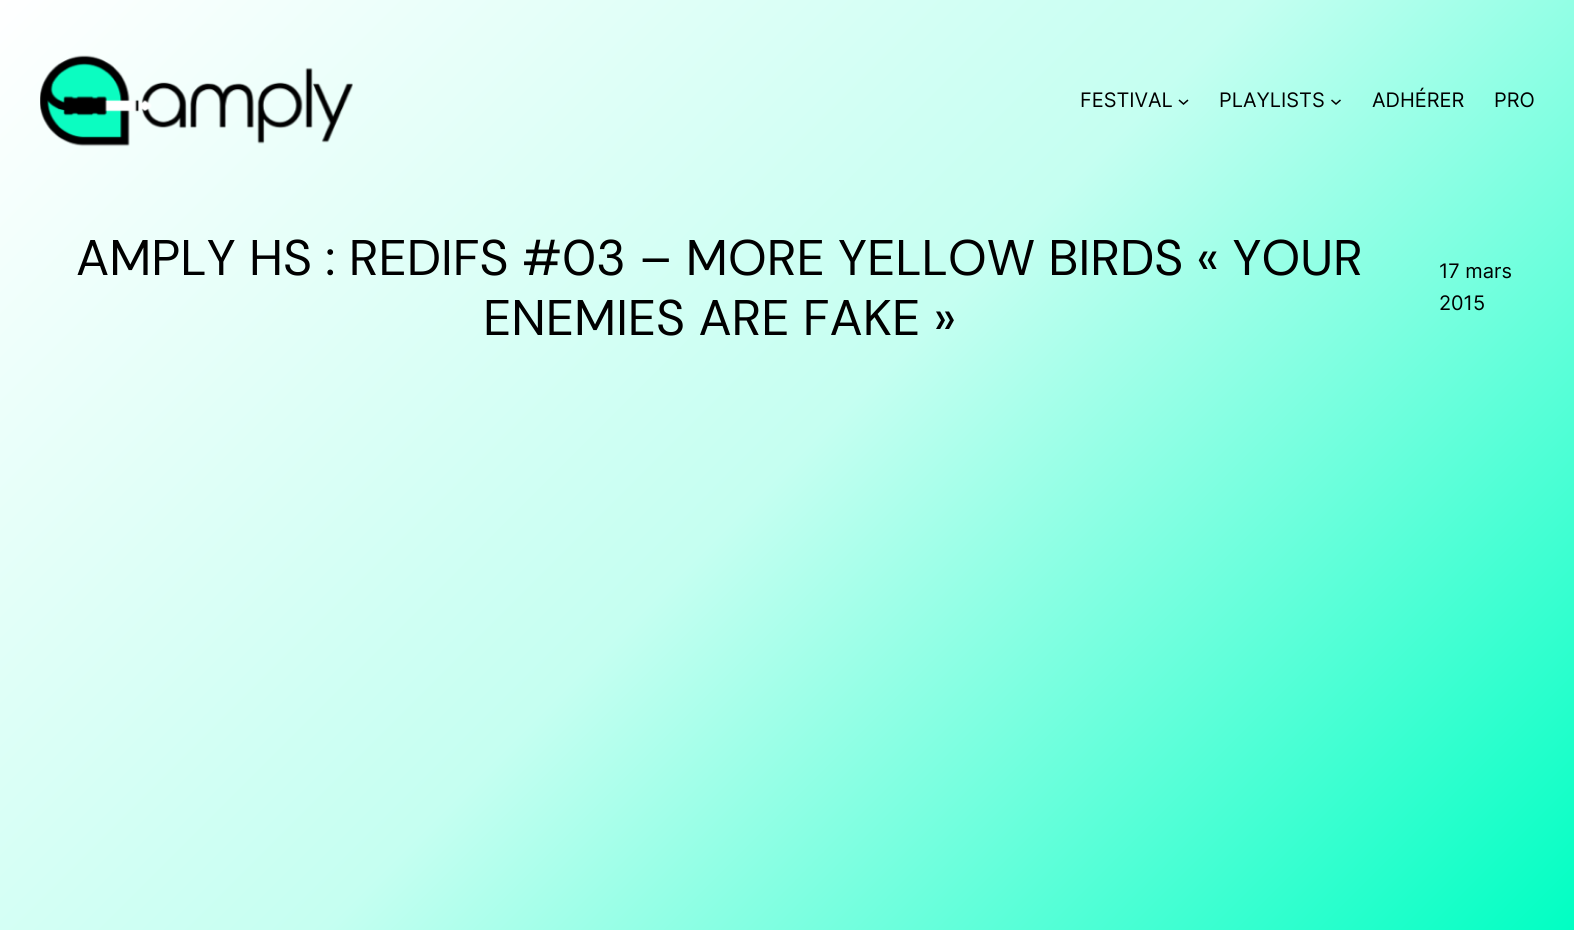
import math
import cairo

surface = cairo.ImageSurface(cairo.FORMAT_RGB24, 1574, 930)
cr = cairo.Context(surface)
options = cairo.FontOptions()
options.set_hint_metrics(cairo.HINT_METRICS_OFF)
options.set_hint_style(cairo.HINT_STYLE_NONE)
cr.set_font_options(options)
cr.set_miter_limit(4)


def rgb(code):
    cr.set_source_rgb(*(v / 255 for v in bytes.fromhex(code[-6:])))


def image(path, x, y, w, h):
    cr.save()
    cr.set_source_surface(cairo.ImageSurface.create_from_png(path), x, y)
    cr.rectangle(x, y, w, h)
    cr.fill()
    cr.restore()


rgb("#ffffff")
cr.paint()
gradient = cairo.LinearGradient(161, -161, 1414, 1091)
gradient.add_color_stop_rgba(0, 1, 1, 1, 1)
gradient.add_color_stop_rgba(0.5, 0.773, 1, 0.945, 1)
gradient.add_color_stop_rgba(1, 0, 1, 0.765, 1)
cr.set_source(gradient)
cr.rectangle(0, 0, 1574, 930)
cr.fill()
image("img/1.png", 40, 55, 313, 92)
cr.new_path()
cr.move_to(1179, 100)
cr.line_to(1183.5, 104)
cr.line_to(1188, 100)
rgb("#000000")
cr.set_line_width(1.5)
cr.stroke()
cr.new_path()
cr.move_to(1331.5, 100)
cr.line_to(1336, 104)
cr.line_to(1340.5, 100)
cr.stroke()
cr.select_font_face("Inter")
cr.set_font_size(20)
for x, y, s in [
    (1080, 107, "FESTIVAL"),
    (1219, 107, "PLAYLISTS"),
    (1372, 107, "ADHÉRER"),
    (1494, 107, "PRO"),
]:
    cr.move_to(x, y)
    cr.show_text(s)
cr.select_font_face("DM Sans")
cr.set_font_size(50)
cr.move_to(76, 275)
cr.show_text("AMPLY HS : REDIFS #03 – MORE YELLOW BIRDS « YOUR")
cr.move_to(483, 335)
cr.show_text("ENEMIES ARE FAKE »")
cr.select_font_face("Inter")
cr.set_font_size(20)
cr.move_to(1439, 278)
cr.show_text("17 mars")
cr.move_to(1439, 310)
cr.show_text("2015")
surface.write_to_png("page.png")
